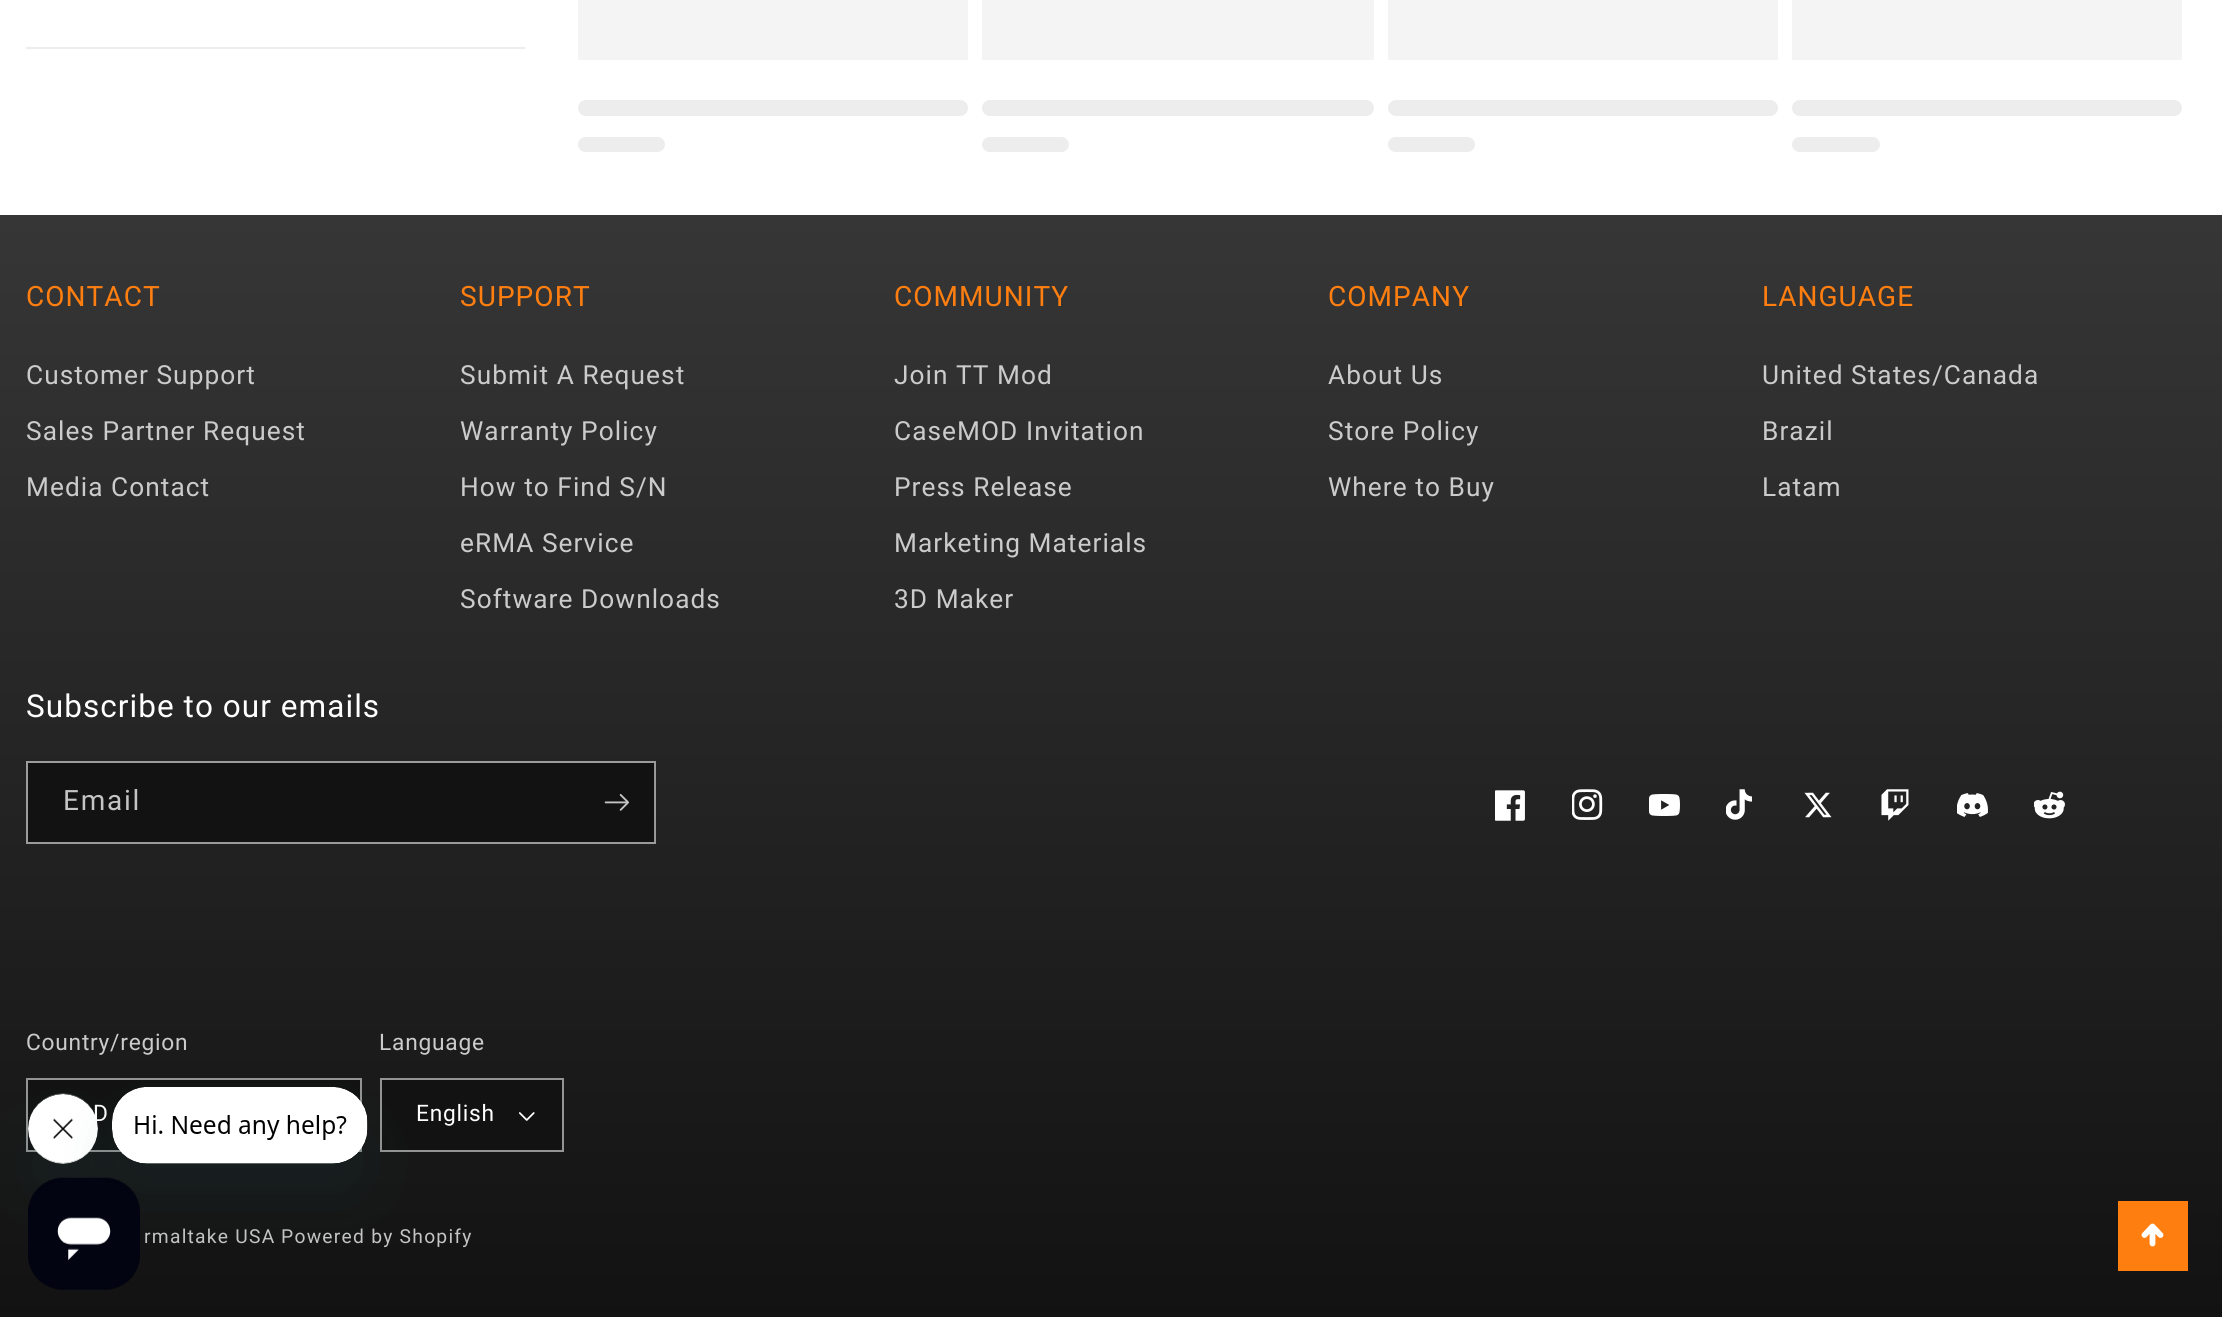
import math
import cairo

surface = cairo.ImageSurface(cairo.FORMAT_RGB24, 2222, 1317)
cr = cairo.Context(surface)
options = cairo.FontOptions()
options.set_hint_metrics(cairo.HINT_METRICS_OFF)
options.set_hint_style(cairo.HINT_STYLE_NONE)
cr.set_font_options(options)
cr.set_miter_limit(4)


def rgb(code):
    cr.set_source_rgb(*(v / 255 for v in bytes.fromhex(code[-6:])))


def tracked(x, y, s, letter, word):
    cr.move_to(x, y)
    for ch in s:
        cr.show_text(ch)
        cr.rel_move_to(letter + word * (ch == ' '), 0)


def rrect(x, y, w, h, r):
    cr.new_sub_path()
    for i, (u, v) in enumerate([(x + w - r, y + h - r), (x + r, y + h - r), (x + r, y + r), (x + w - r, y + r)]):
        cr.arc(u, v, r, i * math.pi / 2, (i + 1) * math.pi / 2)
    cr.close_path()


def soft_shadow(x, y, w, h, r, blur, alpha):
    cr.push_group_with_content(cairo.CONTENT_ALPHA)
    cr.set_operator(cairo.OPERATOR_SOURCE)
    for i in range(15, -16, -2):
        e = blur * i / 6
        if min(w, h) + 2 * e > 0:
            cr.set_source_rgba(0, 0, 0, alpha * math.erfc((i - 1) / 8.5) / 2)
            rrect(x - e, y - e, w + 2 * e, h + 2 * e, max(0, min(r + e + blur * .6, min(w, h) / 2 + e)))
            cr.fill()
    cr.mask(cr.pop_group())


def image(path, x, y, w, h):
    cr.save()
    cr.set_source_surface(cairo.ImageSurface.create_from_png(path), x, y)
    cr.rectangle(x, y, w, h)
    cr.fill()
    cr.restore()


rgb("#ffffff")
cr.paint()
rgb("#ededed")
cr.rectangle(26, 47, 499, 2)
cr.fill()
rgb("#f4f4f4")
cr.rectangle(578, 0, 390, 60)
cr.fill()
rgb("#ededed")
rrect(578, 100, 390, 16, 8)
cr.fill()
rrect(578, 137, 87, 15, 7.5)
cr.fill()
rgb("#f4f4f4")
cr.rectangle(982, 0, 392, 60)
cr.fill()
rgb("#ededed")
rrect(982, 100, 392, 16, 8)
cr.fill()
rrect(982, 137, 87, 15, 7.5)
cr.fill()
rgb("#f4f4f4")
cr.rectangle(1388, 0, 390, 60)
cr.fill()
rgb("#ededed")
rrect(1388, 100, 390, 16, 8)
cr.fill()
rrect(1388, 137, 87, 15, 7.5)
cr.fill()
rgb("#f4f4f4")
cr.rectangle(1792, 0, 390, 60)
cr.fill()
rgb("#ededed")
rrect(1792, 100, 390, 16, 8)
cr.fill()
rrect(1792, 137, 88, 15, 7.5)
cr.fill()
gradient = cairo.LinearGradient(1111, 215, 1111, 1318)
gradient.add_color_stop_rgba(0, 0.212, 0.212, 0.212, 1)
gradient.add_color_stop_rgba(1, 0.071, 0.071, 0.071, 1)
cr.set_source(gradient)
cr.rectangle(0, 215, 2222, 1102)
cr.fill()
rgb("#121212")
cr.rectangle(28, 763, 627, 79)
cr.fill()
cr.rectangle(27, 762, 628, 81)
cr.set_source_rgba(1, 1, 1, 0.55)
cr.stroke()
image("img/1.png", 604, 794, 25, 17)
image("img/2.png", 1495, 790, 30, 31)
image("img/3.png", 1572, 789, 31, 31)
image("img/4.png", 1649, 794, 31, 22)
image("img/5.png", 1726, 789, 26, 31)
image("img/6.png", 1804, 792, 28, 26)
image("img/7.png", 1881, 789, 28, 32)
image("img/8.png", 1957, 793, 31, 24)
image("img/9.png", 2034, 791, 31, 28)
rgb("#121212")
cr.rectangle(28, 1080, 332, 70)
cr.fill()
cr.rectangle(27, 1079, 334, 72)
rgb("#949494")
cr.stroke()
rgb("#121212")
cr.rectangle(382, 1080, 180, 70)
cr.fill()
image("img/10.png", 519, 1112, 16, 9)
cr.rectangle(381, 1079, 182, 72)
rgb("#949494")
cr.stroke()
rgb("#17494d")
soft_shadow(28, 1129, 70, 70, 35, 26, 0.15)
rgb("#ff7e10")
cr.rectangle(2118, 1201, 70, 70)
cr.fill()
cr.new_path()
cr.move_to(2152.5, 1226.5)
cr.line_to(2152.5, 1243.5)
cr.move_to(2152.5, 1226.5)
cr.line_to(2160.5, 1235)
cr.move_to(2152.5, 1226.5)
cr.line_to(2144.5, 1235)
rgb("#ffffff")
cr.set_line_width(5.8)
cr.set_line_cap(cairo.LINE_CAP_ROUND)
cr.stroke()
cr.select_font_face("Roboto")
cr.set_font_size(28)
rgb("#ff7e10")
tracked(26, 306, "CONTACT", 1.05, 0)
cr.set_font_size(26.25)
rgb("#cbcbcb")
for x, y, s in [
    (26, 384, "Customer Support"),
    (26, 440, "Sales Partner Request"),
    (26, 496, "Media Contact"),
]:
    tracked(x, y, s, 1.05, 0)
cr.set_font_size(28)
rgb("#ff7e10")
tracked(460, 306, "SUPPORT", 1.05, 0)
cr.set_font_size(26.25)
rgb("#cbcbcb")
for x, y, s in [
    (460, 384, "Submit A Request"),
    (460, 440, "Warranty Policy"),
    (460, 496, "How to Find S/N"),
    (460, 552, "eRMA Service"),
    (460, 608, "Software Downloads"),
]:
    tracked(x, y, s, 1.05, 0)
cr.set_font_size(28)
rgb("#ff7e10")
tracked(894, 306, "COMMUNITY", 1.05, 0)
cr.set_font_size(26.25)
rgb("#cbcbcb")
for x, y, s in [
    (894, 384, "Join TT Mod"),
    (894, 440, "CaseMOD Invitation"),
    (894, 496, "Press Release"),
    (894, 552, "Marketing Materials"),
    (894, 608, "3D Maker"),
]:
    tracked(x, y, s, 1.05, 0)
cr.set_font_size(28)
rgb("#ff7e10")
tracked(1328, 306, "COMPANY", 1.05, 0)
cr.set_font_size(26.25)
rgb("#cbcbcb")
for x, y, s in [
    (1328, 384, "About Us"),
    (1328, 440, "Store Policy"),
    (1328, 496, "Where to Buy"),
]:
    tracked(x, y, s, 1.05, 0)
cr.set_font_size(28)
rgb("#ff7e10")
tracked(1762, 306, "LANGUAGE", 1.05, 0)
cr.set_font_size(26.25)
rgb("#cbcbcb")
for x, y, s in [
    (1762, 384, "United States/Canada"),
    (1762, 440, "Brazil"),
    (1762, 496, "Latam"),
]:
    tracked(x, y, s, 1.05, 0)
cr.set_font_size(31.5)
rgb("#ffffff")
tracked(26, 717, "Subscribe to our emails", 1.05, 0)
cr.set_font_size(28)
rgb("#c4c4c4")
tracked(63, 810, "Email", 1.75, 0)
cr.set_font_size(22.75)
rgb("#cbcbcb")
tracked(26, 1050, "Country/region", 0.75, 0)
rgb("#ffffff")
tracked(93, 1121, "D", 0.75, 0)
rgb("#cbcbcb")
tracked(379, 1050, "Language", 0.75, 0)
rgb("#ffffff")
tracked(416, 1121, "English", 0.75, 0)
cr.set_font_size(19.25)
rgb("#c4c4c4")
tracked(144, 1243, "rmaltake USA", 1.25, 0)
tracked(281, 1243, "Powered by Shopify", 1.25, 0)
image("img/12.png", 28, 1093, 70, 71)
rgb("#17494d")
soft_shadow(112, 1122, 256, 77, 35, 26, 0.15)
image("img/11.png", 112, 1087, 256, 77)
image("img/13.png", 28, 1177, 112, 113)
surface.write_to_png("page.png")
